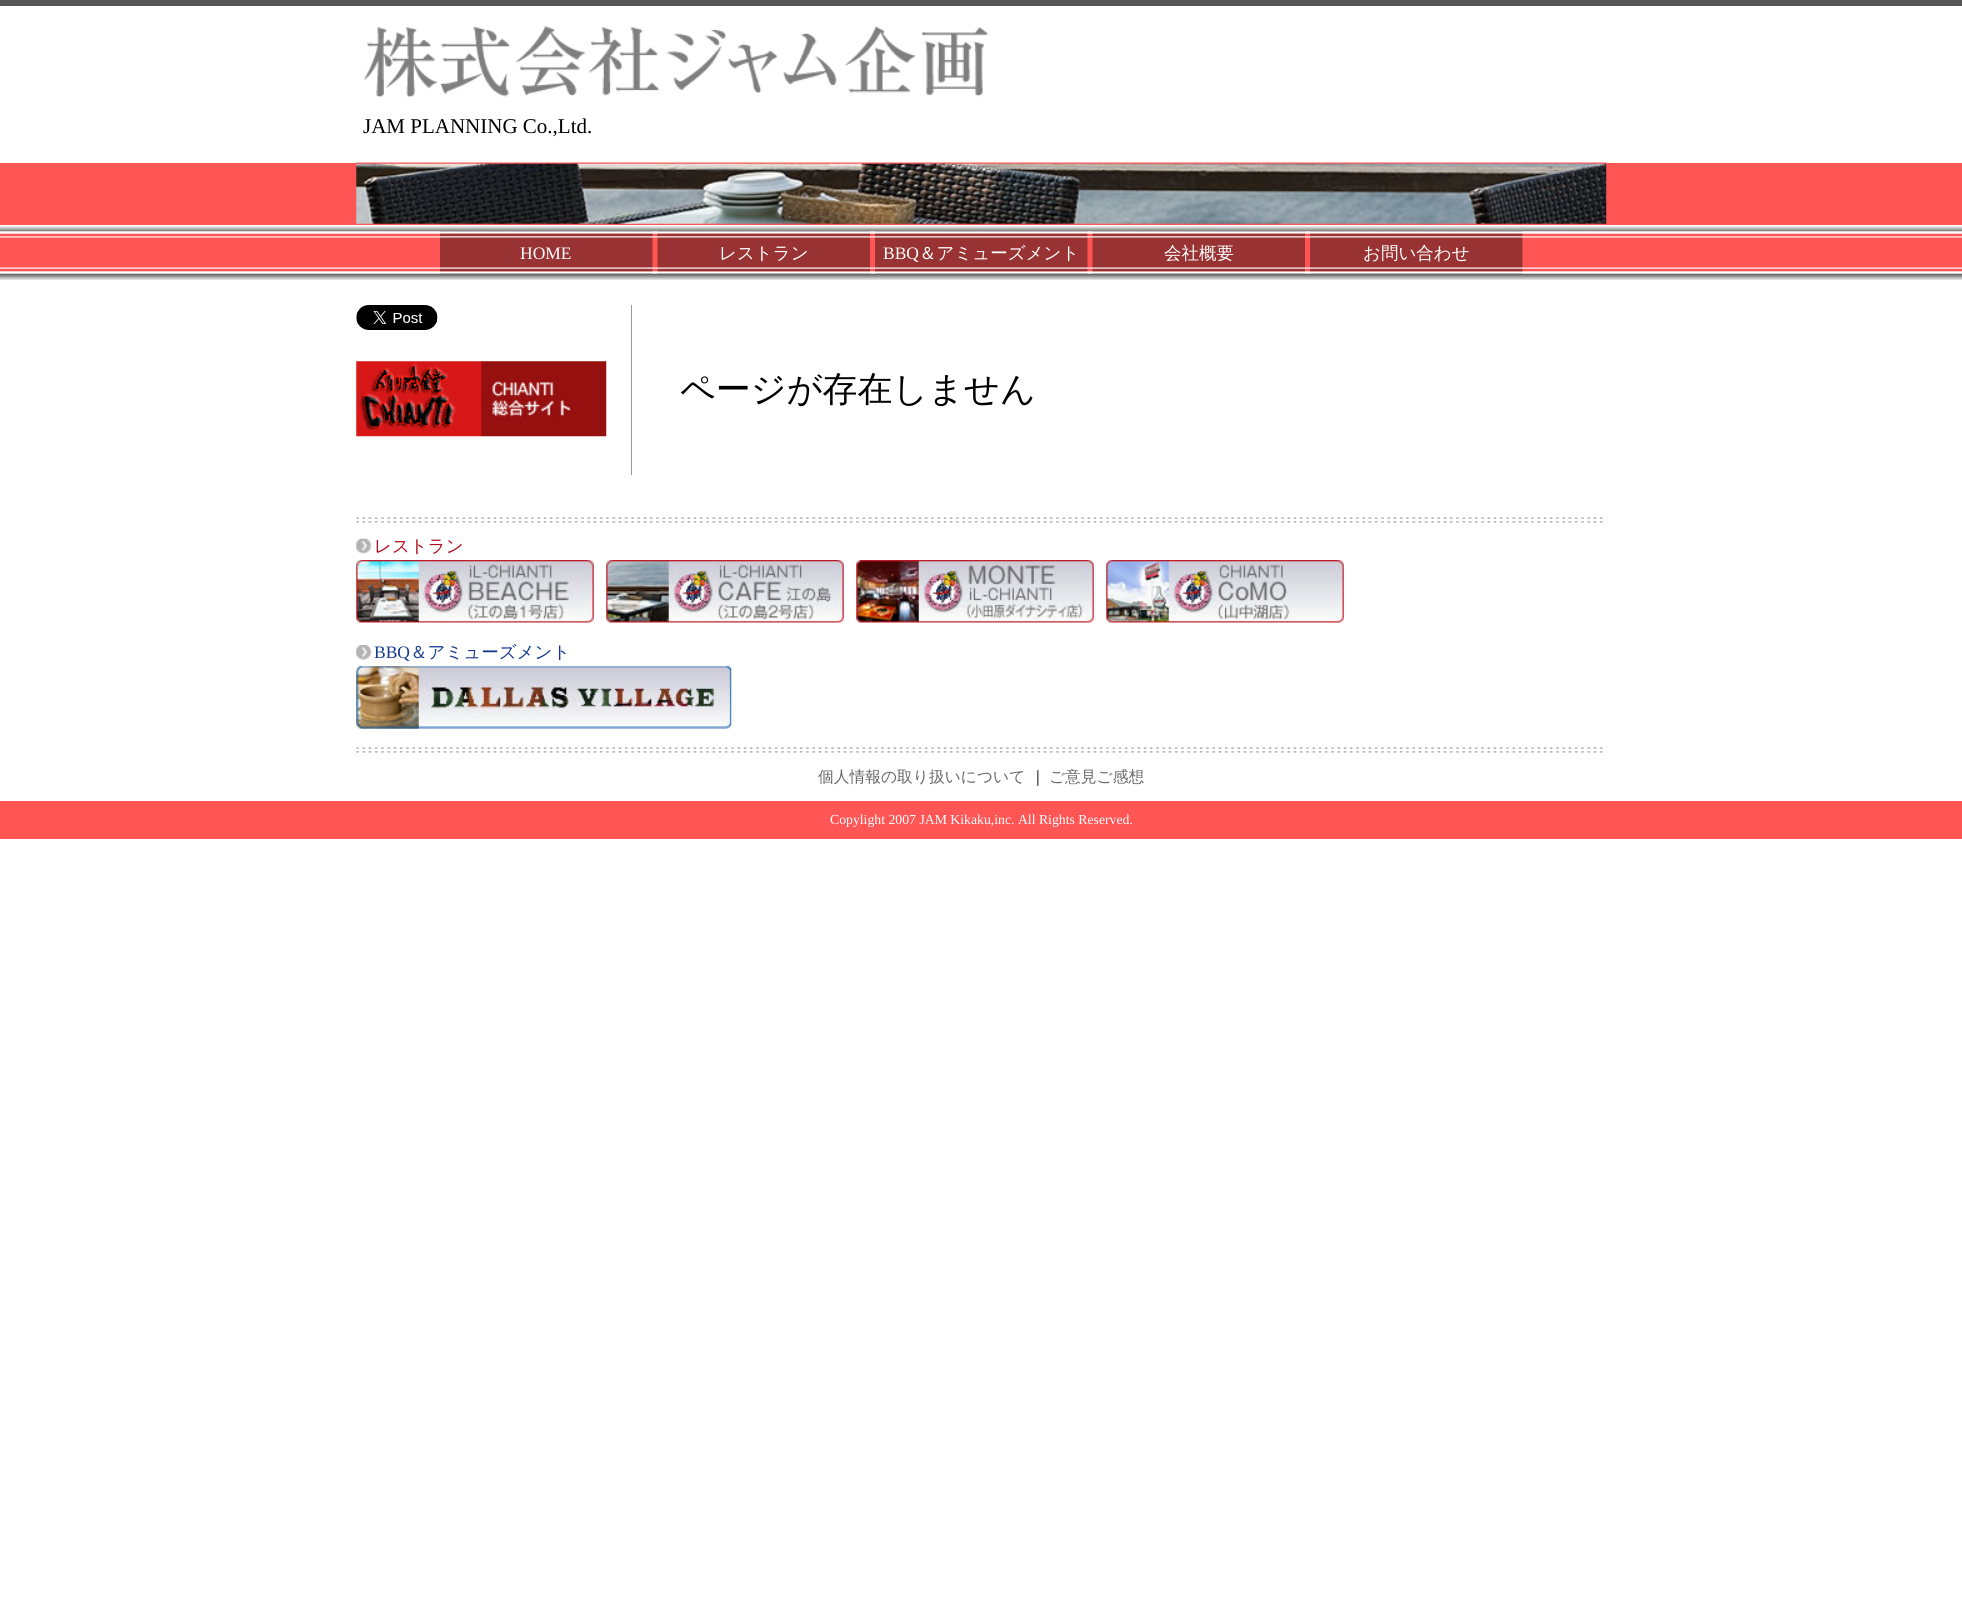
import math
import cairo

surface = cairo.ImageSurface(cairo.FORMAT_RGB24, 1962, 1606)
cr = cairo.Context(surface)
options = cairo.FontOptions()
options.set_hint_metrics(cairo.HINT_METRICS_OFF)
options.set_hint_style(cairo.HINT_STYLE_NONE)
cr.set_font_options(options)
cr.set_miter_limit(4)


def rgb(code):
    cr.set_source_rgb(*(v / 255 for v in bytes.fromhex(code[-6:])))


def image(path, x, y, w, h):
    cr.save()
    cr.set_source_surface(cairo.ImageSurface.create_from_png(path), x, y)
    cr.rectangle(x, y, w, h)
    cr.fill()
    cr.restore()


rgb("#ffffff")
cr.paint()
rgb("#555555")
cr.rectangle(0, 0, 1962, 6)
cr.fill()
image("img/1.png", 363, 26, 625, 71)
rgb("#ff5555")
cr.rectangle(0, 163, 1962, 62)
cr.fill()
image("img/2.png", 356, 162, 1251, 63)
image("img/3.png", 0, 226, 1962, 54)
image("img/4.png", 440, 231, 213, 43)
image("img/5.png", 657, 231, 213, 43)
image("img/4.png", 875, 231, 213, 43)
image("img/5.png", 1092, 231, 213, 43)
image("img/4.png", 1310, 231, 213, 43)
image("img/6.png", 356, 305, 82, 25)
image("img/7.png", 356, 361, 251, 76)
rgb("#999999")
cr.rectangle(631, 305, 1, 170)
cr.fill()
image("img/8.png", 356, 517, 1251, 6)
image("img/9.png", 356, 538, 16, 16)
image("img/10.png", 356, 560, 238, 63)
image("img/11.png", 606, 560, 238, 63)
image("img/12.png", 856, 560, 238, 63)
image("img/13.png", 1106, 560, 238, 63)
image("img/14.png", 356, 645, 16, 15)
image("img/15.png", 356, 666, 376, 63)
image("img/16.png", 356, 747, 1251, 6)
rgb("#ff5555")
cr.rectangle(0, 801, 1962, 38)
cr.fill()
cr.select_font_face("Liberation Serif")
cr.set_font_size(21)
rgb("#000000")
cr.move_to(363, 133)
cr.show_text("JAM PLANNING Co.,Ltd.")
cr.set_font_size(17.5)
rgb("#ffffff")
cr.move_to(520, 259)
cr.show_text("HOME")
cr.select_font_face("WenQuanYi Zen Hei Medium")
cr.move_to(719, 259)
cr.show_text("レストラン")
cr.select_font_face("Liberation Serif")
cr.move_to(883, 259)
cr.show_text("BBQ")
cr.select_font_face("WenQuanYi Zen Hei Medium")
for x, y, s in [
    (919, 259, "＆アミューズメント"),
    (1164, 259, "会社概要"),
    (1363, 259, "お問い合わせ"),
]:
    cr.move_to(x, y)
    cr.show_text(s)
cr.set_font_size(35)
rgb("#000000")
cr.move_to(680, 401)
cr.show_text("ページが存在しません")
cr.set_font_size(17.5)
rgb("#b20b1e")
cr.move_to(374, 552)
cr.show_text("レストラン")
cr.select_font_face("Liberation Serif")
rgb("#16398f")
cr.move_to(374, 658)
cr.show_text("BBQ")
cr.select_font_face("WenQuanYi Zen Hei Medium")
cr.move_to(410, 658)
cr.show_text("＆アミューズメント")
cr.set_font_size(15.75)
rgb("#666666")
cr.move_to(818, 782)
cr.show_text("個人情報の取り扱いについて")
rgb("#000000")
cr.move_to(1030, 782)
cr.show_text("｜")
rgb("#666666")
cr.move_to(1049, 782)
cr.show_text("ご意見ご感想")
cr.select_font_face("Liberation Serif")
cr.set_font_size(13.75)
rgb("#ffffff")
cr.move_to(830, 824)
cr.show_text("Copylight 2007 JAM Kikaku,inc. All Rights Reserved.")
surface.write_to_png("page.png")
